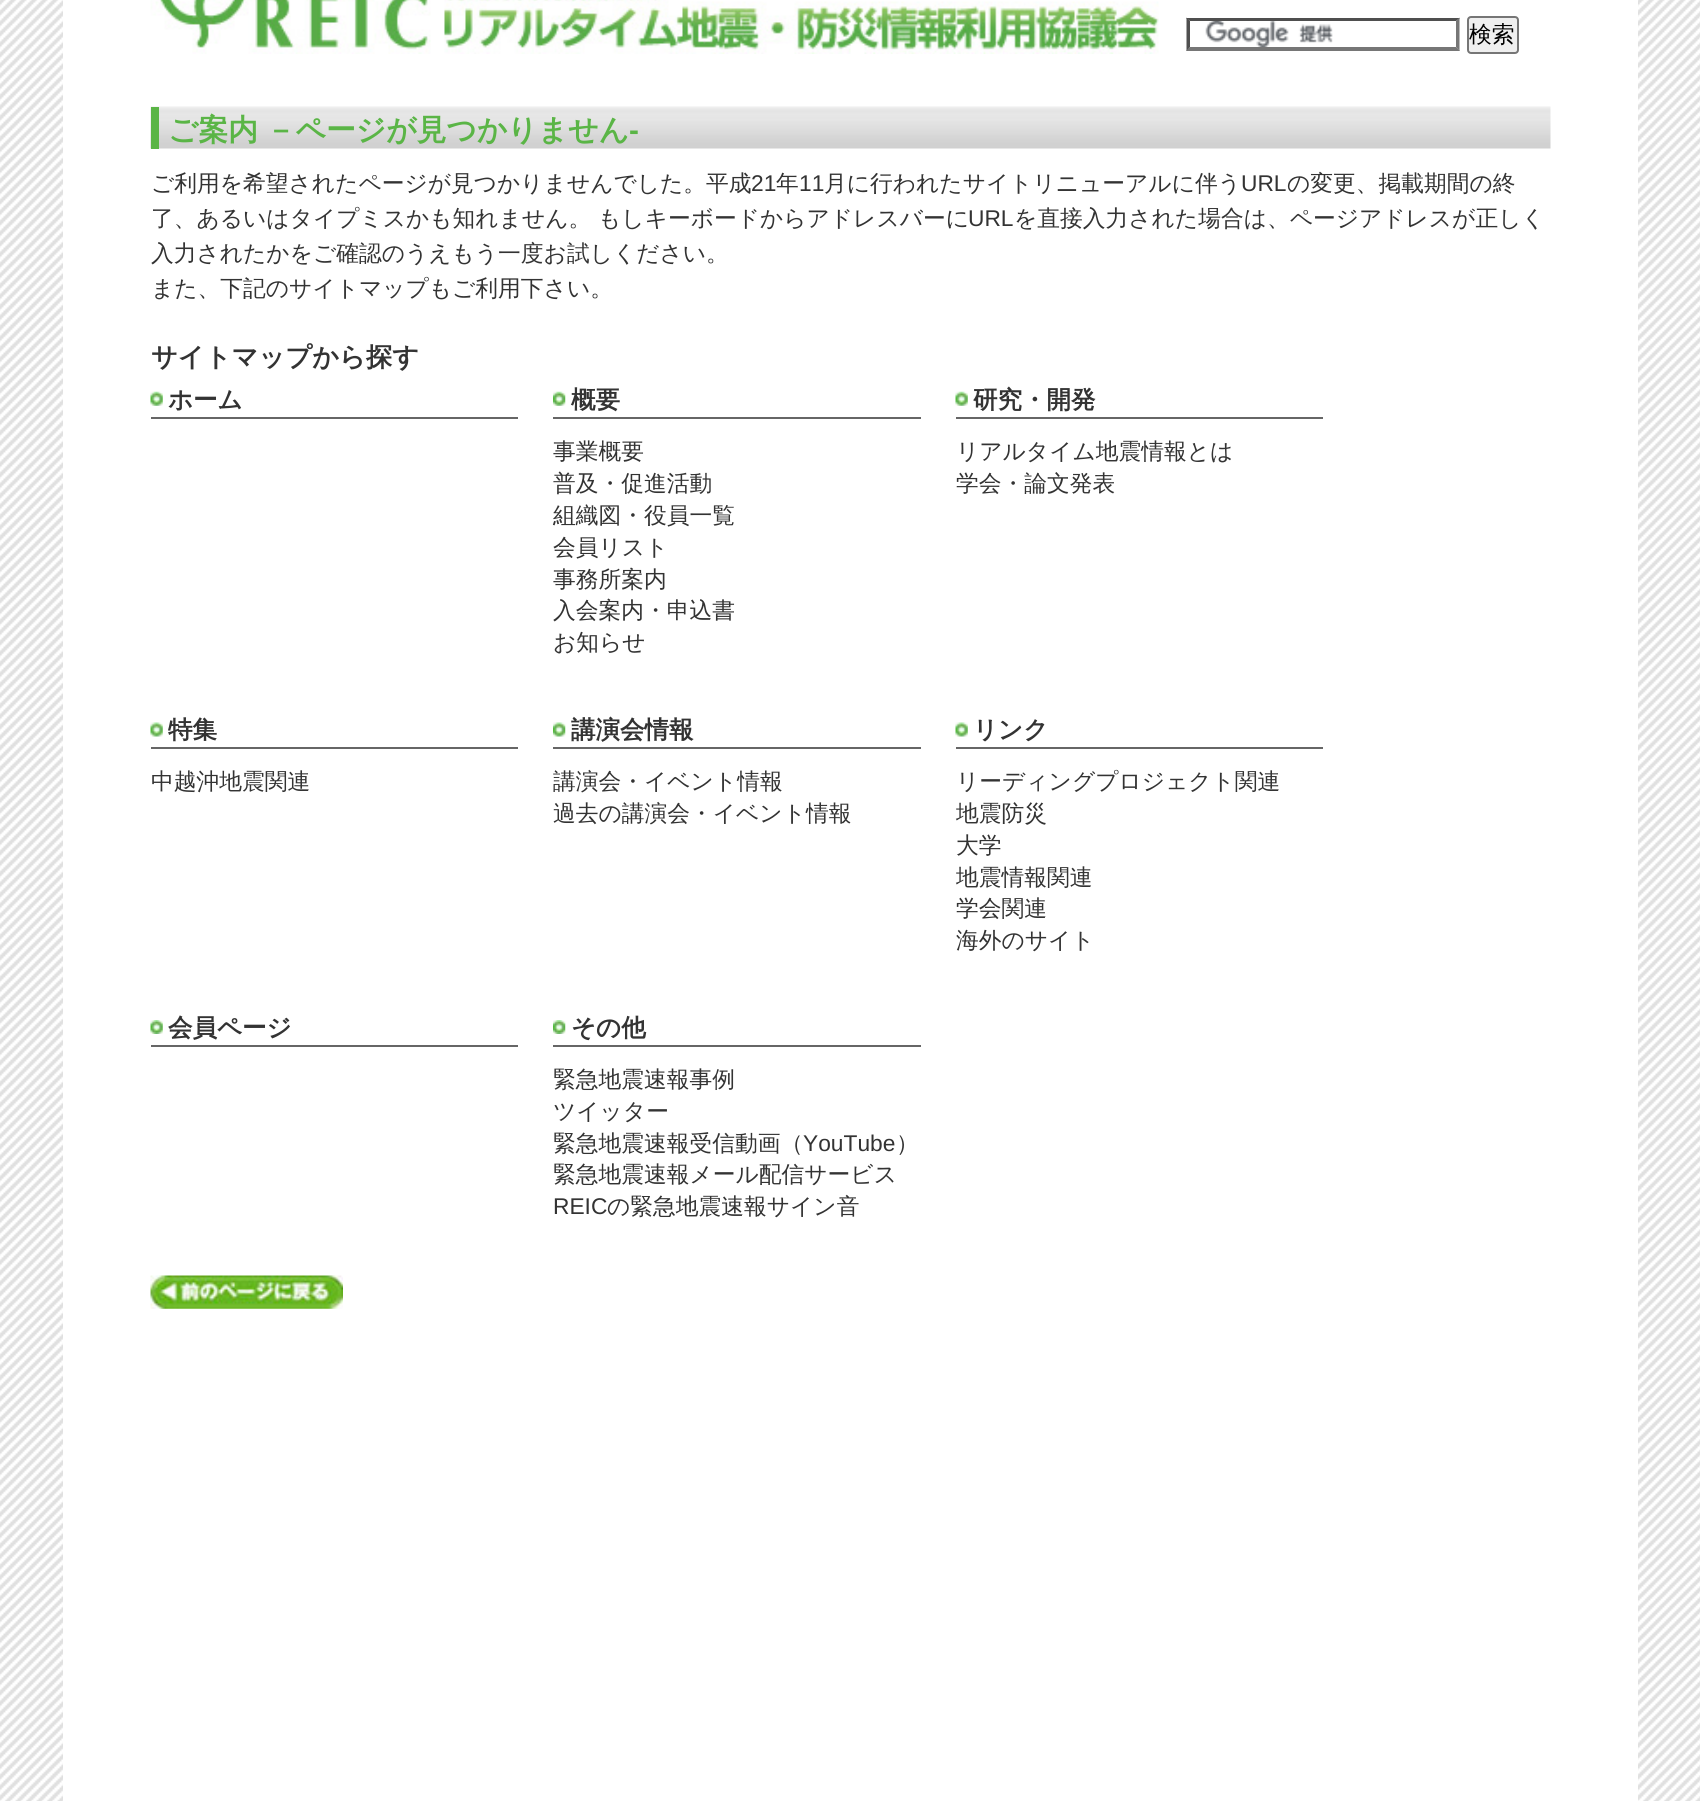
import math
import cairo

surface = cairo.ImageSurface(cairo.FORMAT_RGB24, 1700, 1801)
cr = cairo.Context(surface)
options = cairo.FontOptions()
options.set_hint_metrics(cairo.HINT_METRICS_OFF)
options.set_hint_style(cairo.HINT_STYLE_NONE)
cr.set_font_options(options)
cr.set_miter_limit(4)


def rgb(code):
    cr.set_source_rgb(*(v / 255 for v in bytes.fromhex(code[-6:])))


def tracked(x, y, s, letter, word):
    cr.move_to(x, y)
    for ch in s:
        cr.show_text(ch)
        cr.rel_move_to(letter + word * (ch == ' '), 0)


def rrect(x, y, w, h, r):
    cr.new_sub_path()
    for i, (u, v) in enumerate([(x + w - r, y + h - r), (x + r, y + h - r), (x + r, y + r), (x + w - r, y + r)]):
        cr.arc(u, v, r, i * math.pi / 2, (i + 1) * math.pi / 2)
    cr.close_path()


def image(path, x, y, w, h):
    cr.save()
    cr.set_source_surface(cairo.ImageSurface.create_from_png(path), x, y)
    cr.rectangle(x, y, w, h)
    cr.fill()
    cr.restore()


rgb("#ffffff")
cr.paint()
image("img/1.png", 0, 0, 1700, 1801)
rgb("#ffffff")
cr.rectangle(63, 0, 1575, 1801)
cr.fill()
image("img/2.png", 150, 0, 1009, 54)
image("img/3.png", 1205, 21, 128, 26)
rgb("#4f4f4f")
cr.new_path()
cr.move_to(1186, 18)
cr.line_to(1460, 18)
cr.line_to(1456, 21)
cr.line_to(1190, 21)
cr.close_path()
cr.fill()
rgb("#767676")
cr.new_path()
cr.move_to(1459.5, 17.5)
cr.line_to(1459.5, 51)
cr.line_to(1456, 47)
cr.line_to(1456, 21)
cr.close_path()
cr.fill()
cr.new_path()
cr.move_to(1460, 51)
cr.line_to(1186, 51)
cr.line_to(1190, 47)
cr.line_to(1456, 47)
cr.close_path()
cr.fill()
rgb("#4f4f4f")
cr.new_path()
cr.move_to(1186.5, 51)
cr.line_to(1186.5, 17.5)
cr.line_to(1190, 21)
cr.line_to(1190, 47)
cr.close_path()
cr.fill()
rgb("#efefef")
rrect(1468, 17, 50, 36, 3)
cr.fill_preserve()
rgb("#767676")
cr.stroke()
image("img/4.png", 150, 106, 1401, 43)
rgb("#5ab546")
cr.rectangle(151, 107, 8, 42)
cr.fill()
image("img/5.png", 150, 391, 13, 15)
rgb("#666666")
cr.rectangle(151, 417, 367, 2)
cr.fill()
image("img/6.png", 553, 391, 13, 15)
cr.rectangle(553, 417, 368, 2)
cr.fill()
image("img/5.png", 955, 391, 13, 15)
cr.rectangle(956, 417, 367, 2)
cr.fill()
image("img/7.png", 150, 722, 13, 15)
cr.rectangle(151, 747, 367, 2)
cr.fill()
image("img/8.png", 553, 722, 13, 15)
cr.rectangle(553, 747, 368, 2)
cr.fill()
image("img/7.png", 955, 722, 13, 15)
cr.rectangle(956, 747, 367, 2)
cr.fill()
image("img/9.png", 150, 1020, 13, 14)
cr.rectangle(151, 1045, 367, 2)
cr.fill()
image("img/10.png", 553, 1020, 13, 14)
cr.rectangle(553, 1045, 368, 2)
cr.fill()
image("img/11.png", 150, 1275, 193, 34)
cr.select_font_face("WenQuanYi Zen Hei Medium")
cr.set_font_size(22.75)
rgb("#000000")
cr.move_to(1469, 42)
cr.show_text("検索")
cr.select_font_face("WenQuanYi Zen Hei", cairo.FONT_SLANT_NORMAL, cairo.FONT_WEIGHT_BOLD)
cr.set_font_size(29.75)
rgb("#5ab546")
tracked(168, 140, "ご案内 －ページが見つかりません", 0, -1)
cr.select_font_face("Liberation Sans", cairo.FONT_SLANT_NORMAL, cairo.FONT_WEIGHT_BOLD)
cr.move_to(629, 140)
cr.show_text("-")
cr.select_font_face("WenQuanYi Zen Hei Medium")
cr.set_font_size(22.75)
rgb("#333333")
cr.move_to(151, 191)
cr.show_text("ご利用を希望されたページが見つかりませんでした。平成")
cr.select_font_face("Liberation Sans")
cr.move_to(751, 191)
cr.show_text("21")
cr.select_font_face("WenQuanYi Zen Hei Medium")
cr.move_to(776, 191)
cr.show_text("年")
cr.select_font_face("Liberation Sans")
cr.move_to(799, 191)
cr.show_text("11")
cr.select_font_face("WenQuanYi Zen Hei Medium")
cr.move_to(824, 191)
cr.show_text("月に行われたサイトリニューアルに伴う")
cr.select_font_face("Liberation Sans")
cr.move_to(1241, 191)
cr.show_text("URL")
cr.select_font_face("WenQuanYi Zen Hei Medium")
cr.move_to(1287, 191)
cr.show_text("の変更、掲載期間の終")
cr.move_to(151, 226)
cr.show_text("了、あるいはタイプミスかも知れません。 もしキーボードからアドレスバーに")
cr.select_font_face("Liberation Sans")
cr.move_to(968, 226)
cr.show_text("URL")
cr.select_font_face("WenQuanYi Zen Hei Medium")
for x, y, s in [
    (1014, 226, "を直接入力された場合は、ページアドレスが正しく"),
    (151, 261, "入力されたかをご確認のうえもう一度お試しください。"),
    (151, 296, "また、下記のサイトマップもご利用下さい。"),
]:
    cr.move_to(x, y)
    cr.show_text(s)
cr.select_font_face("WenQuanYi Zen Hei", cairo.FONT_SLANT_NORMAL, cairo.FONT_WEIGHT_BOLD)
cr.set_font_size(26.25)
cr.move_to(151, 366)
cr.show_text("サイトマップから探す")
cr.set_font_size(24.5)
cr.move_to(168, 408)
cr.show_text("ホーム")
cr.move_to(571, 408)
cr.show_text("概要")
cr.select_font_face("WenQuanYi Zen Hei Medium")
cr.set_font_size(22.75)
for x, y, s in [
    (553, 459, "事業概要"),
    (553, 491, "普及・促進活動"),
    (553, 523, "組織図・役員一覧"),
    (553, 555, "会員リスト"),
    (553, 587, "事務所案内"),
    (553, 618, "入会案内・申込書"),
    (553, 650, "お知らせ"),
]:
    cr.move_to(x, y)
    cr.show_text(s)
cr.select_font_face("WenQuanYi Zen Hei", cairo.FONT_SLANT_NORMAL, cairo.FONT_WEIGHT_BOLD)
cr.set_font_size(24.5)
cr.move_to(973, 408)
cr.show_text("研究・開発")
cr.select_font_face("WenQuanYi Zen Hei Medium")
cr.set_font_size(22.75)
cr.move_to(956, 459)
cr.show_text("リアルタイム地震情報とは")
cr.move_to(956, 491)
cr.show_text("学会・論文発表")
cr.select_font_face("WenQuanYi Zen Hei", cairo.FONT_SLANT_NORMAL, cairo.FONT_WEIGHT_BOLD)
cr.set_font_size(24.5)
cr.move_to(168, 738)
cr.show_text("特集")
cr.select_font_face("WenQuanYi Zen Hei Medium")
cr.set_font_size(22.75)
cr.move_to(151, 789)
cr.show_text("中越沖地震関連")
cr.select_font_face("WenQuanYi Zen Hei", cairo.FONT_SLANT_NORMAL, cairo.FONT_WEIGHT_BOLD)
cr.set_font_size(24.5)
cr.move_to(571, 738)
cr.show_text("講演会情報")
cr.select_font_face("WenQuanYi Zen Hei Medium")
cr.set_font_size(22.75)
cr.move_to(553, 789)
cr.show_text("講演会・イベント情報")
cr.move_to(553, 821)
cr.show_text("過去の講演会・イベント情報")
cr.select_font_face("WenQuanYi Zen Hei", cairo.FONT_SLANT_NORMAL, cairo.FONT_WEIGHT_BOLD)
cr.set_font_size(24.5)
cr.move_to(973, 738)
cr.show_text("リンク")
cr.select_font_face("WenQuanYi Zen Hei Medium")
cr.set_font_size(22.75)
for x, y, s in [
    (956, 789, "リーディングプロジェクト関連"),
    (956, 821, "地震防災"),
    (956, 853, "大学"),
    (956, 885, "地震情報関連"),
    (956, 916, "学会関連"),
    (956, 948, "海外のサイト"),
]:
    cr.move_to(x, y)
    cr.show_text(s)
cr.select_font_face("WenQuanYi Zen Hei", cairo.FONT_SLANT_NORMAL, cairo.FONT_WEIGHT_BOLD)
cr.set_font_size(24.5)
cr.move_to(168, 1036)
cr.show_text("会員ページ")
cr.move_to(571, 1036)
cr.show_text("その他")
cr.select_font_face("WenQuanYi Zen Hei Medium")
cr.set_font_size(22.75)
for x, y, s in [
    (553, 1087, "緊急地震速報事例"),
    (553, 1119, "ツイッター"),
    (553, 1151, "緊急地震速報受信動画（"),
]:
    cr.move_to(x, y)
    cr.show_text(s)
cr.select_font_face("Liberation Sans")
cr.move_to(803, 1151)
cr.show_text("YouTube")
cr.select_font_face("WenQuanYi Zen Hei Medium")
cr.move_to(896, 1151)
cr.show_text("）")
cr.move_to(553, 1182)
cr.show_text("緊急地震速報メール配信サービス")
cr.select_font_face("Liberation Sans")
cr.move_to(553, 1214)
cr.show_text("REIC")
cr.select_font_face("WenQuanYi Zen Hei Medium")
cr.move_to(607, 1214)
cr.show_text("の緊急地震速報サイン音")
surface.write_to_png("page.png")
